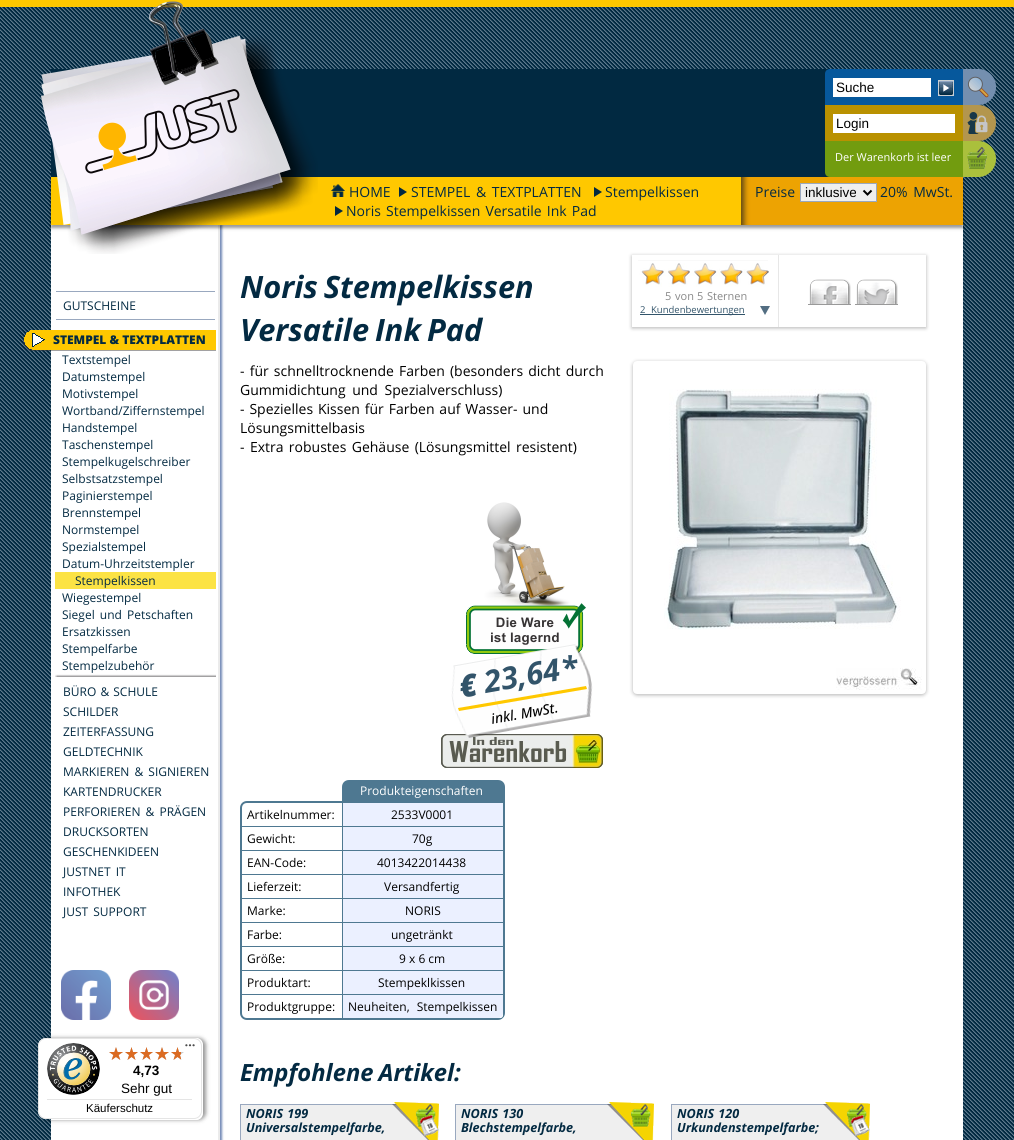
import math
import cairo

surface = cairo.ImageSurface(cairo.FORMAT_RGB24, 1014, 1140)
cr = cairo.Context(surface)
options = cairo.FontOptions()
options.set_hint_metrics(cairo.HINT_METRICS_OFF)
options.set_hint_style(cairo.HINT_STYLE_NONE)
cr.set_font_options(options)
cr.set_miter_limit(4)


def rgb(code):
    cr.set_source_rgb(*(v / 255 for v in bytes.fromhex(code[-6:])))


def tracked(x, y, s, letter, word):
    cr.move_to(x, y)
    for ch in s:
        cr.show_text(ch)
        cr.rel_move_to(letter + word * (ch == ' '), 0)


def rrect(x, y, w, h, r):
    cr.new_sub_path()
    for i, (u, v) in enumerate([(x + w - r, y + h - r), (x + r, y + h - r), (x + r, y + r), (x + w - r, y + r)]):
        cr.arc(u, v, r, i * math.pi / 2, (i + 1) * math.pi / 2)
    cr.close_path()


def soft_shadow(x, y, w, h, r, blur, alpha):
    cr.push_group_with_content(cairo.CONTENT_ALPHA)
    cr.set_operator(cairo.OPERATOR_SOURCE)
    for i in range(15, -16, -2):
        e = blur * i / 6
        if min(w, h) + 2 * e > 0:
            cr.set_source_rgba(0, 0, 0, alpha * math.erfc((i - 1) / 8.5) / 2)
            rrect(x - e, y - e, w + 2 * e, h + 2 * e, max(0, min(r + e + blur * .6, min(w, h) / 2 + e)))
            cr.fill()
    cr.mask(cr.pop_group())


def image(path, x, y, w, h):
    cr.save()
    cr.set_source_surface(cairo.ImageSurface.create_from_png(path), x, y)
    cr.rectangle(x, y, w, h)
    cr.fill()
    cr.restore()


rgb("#ffffff")
cr.paint()
image("img/1.png", 0, 7, 1014, 1133)
for x, y, w, h, color in [
    (0, 0, 1014, 7, "#ffc800"),
    (51, 69, 779, 108, "#012941"),
    (220, 225, 743, 915, "#ffffff"),
]:
    rgb(color)
    cr.rectangle(x, y, w, h)
    cr.fill()
rgb("#758bb7")
soft_shadow(53, 225, 169, 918, 0, 1, 1)
rgb("#ffffff")
cr.rectangle(51, 225, 167, 915)
cr.fill()
rgb("#ebebeb")
cr.rectangle(218, 225, 2, 915)
cr.fill()
rgb("#000000")
soft_shadow(51, 180, 912, 48, 0, 1.5, 0.4)
rgb("#ffc800")
cr.rectangle(51, 177, 690, 48)
cr.fill()
image("img/2.png", 41, 1, 277, 253)
image("img/3.png", 963, 69, 33, 36)
rgb("#06589c")
cr.new_path()
cr.move_to(830, 69)
cr.line_to(963, 69)
cr.line_to(963, 105)
cr.line_to(825, 105)
cr.line_to(825, 74)
cr.curve_to(825, 71, 827, 69, 830, 69)
cr.close_path()
cr.fill()
rgb("#ffffff")
cr.rectangle(833, 78, 98, 19)
cr.fill()
image("img/4.png", 938, 80, 16, 16)
image("img/5.png", 963, 105, 33, 36)
rgb("#b99100")
cr.rectangle(825, 105, 138, 36)
cr.fill()
rgb("#ffffff")
cr.rectangle(833, 114, 122, 19)
cr.fill()
image("img/6.png", 963, 141, 33, 36)
rgb("#729c0f")
cr.new_path()
cr.move_to(825, 141)
cr.line_to(963, 141)
cr.line_to(963, 177)
cr.line_to(830, 177)
cr.curve_to(827, 177, 825, 175, 825, 172)
cr.close_path()
cr.fill()
image("img/7.png", 741, 177, 222, 48)
image("img/8.png", 331, 184, 14, 13)
image("img/9.png", 399, 187, 8, 10)
image("img/9.png", 594, 187, 8, 10)
rgb("#efefef")
cr.rectangle(800.5, 183.5, 76, 18)
cr.fill_preserve()
rgb("#99a8bf")
cr.set_line_width(1)
cr.stroke()
cr.new_path()
cr.move_to(863.5, 190.5)
cr.line_to(867.5, 194.5)
cr.line_to(871.5, 190.5)
rgb("#000000")
cr.set_line_width(2)
cr.stroke()
image("img/9.png", 335, 206, 8, 10)
rgb("#99a8bf")
cr.rectangle(56, 291, 159, 1)
cr.fill()
cr.rectangle(56, 319, 159, 1)
cr.fill()
image("img/10.png", 23, 330, 193, 21)
image("img/11.png", 55, 674, 161, 3)
rgb("#fce344")
cr.rectangle(55, 572, 161, 17)
cr.fill()
image("img/12.png", 61, 970, 50, 50)
image("img/13.png", 129, 970, 50, 50)
cr.save()
cr.set_fill_rule(cairo.FILL_RULE_EVEN_ODD)
cr.new_path()
cr.move_to(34, 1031)
cr.line_to(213, 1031)
cr.line_to(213, 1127)
cr.line_to(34, 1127)
cr.close_path()
cr.move_to(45, 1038)
cr.line_to(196, 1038)
cr.curve_to(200, 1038, 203, 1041, 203, 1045)
cr.line_to(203, 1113)
cr.curve_to(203, 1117, 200, 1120, 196, 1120)
cr.line_to(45, 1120)
cr.curve_to(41, 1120, 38, 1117, 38, 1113)
cr.line_to(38, 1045)
cr.curve_to(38, 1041, 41, 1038, 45, 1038)
cr.close_path()
cr.clip()
rgb("#000000")
soft_shadow(41, 1038, 165, 82, 7, 2, 0.4)
cr.restore()
cr.save()
rrect(38, 1038, 165, 82, 7)
cr.clip()
rgb("#ffffff")
rrect(38, 1038, 164, 81, 8)
cr.fill()
cr.restore()
rrect(38.5, 1038.5, 163, 80, 7.5)
rgb("#e5e5e5")
cr.set_line_width(1)
cr.stroke()
image("img/14.png", 185, 1044, 10, 3)
image("img/15.png", 47, 1043, 53, 52)
image("img/16.png", 109, 1047, 14, 13)
image("img/17.png", 125, 1047, 13, 13)
image("img/17.png", 140, 1047, 13, 13)
image("img/16.png", 155, 1047, 14, 13)
image("img/17.png", 171, 1047, 13, 13)
image("img/18.png", 109, 1047, 14, 13)
image("img/19.png", 125, 1047, 13, 13)
image("img/19.png", 140, 1047, 13, 13)
image("img/18.png", 155, 1047, 14, 13)
image("img/20.png", 171, 1047, 10, 13)
cr.rectangle(47, 1099, 145, 1)
cr.fill()
cr.save()
cr.set_fill_rule(cairo.FILL_RULE_EVEN_ODD)
cr.new_path()
cr.move_to(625, 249)
cr.line_to(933, 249)
cr.line_to(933, 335)
cr.line_to(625, 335)
cr.close_path()
cr.move_to(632, 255)
cr.line_to(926, 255)
cr.line_to(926, 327)
cr.line_to(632, 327)
cr.close_path()
cr.clip()
rgb("#000000")
soft_shadow(632, 256, 294, 72, 0, 2, 0.3)
cr.restore()
rgb("#e7e7e7")
cr.rectangle(778, 255, 1, 72)
cr.fill()
image("img/21.png", 768, 263, 1, 22)
image("img/22.png", 638, 260, 130, 27)
image("img/23.png", 760, 306, 10, 9)
rgb("#32546a")
cr.rectangle(640, 314, 105, 1)
cr.fill()
image("img/24.png", 809, 279, 42, 25)
rgb("#999999")
cr.rectangle(808, 304, 43, 1)
cr.fill()
image("img/25.png", 856, 279, 42, 25)
cr.rectangle(855, 304, 43, 1)
cr.fill()
rgb("#000000")
soft_shadow(633, 362, 293, 333, 4, 2, 0.3)
rgb("#ffffff")
rrect(635, 363, 289, 329, 2)
cr.fill_preserve()
cr.set_line_width(4)
cr.stroke()
image("img/26.png", 836, 668, 86, 22)
image("img/27.png", 664, 389, 237, 241)
image("img/28.png", 466, 502, 120, 152)
image("img/30.png", 441, 734, 162, 34)
image("img/29.png", 451, 644, 142, 94)
rgb("#ffc800")
cr.new_path()
cr.move_to(458, 708)
cr.line_to(586, 686)
cr.line_to(587, 689)
cr.line_to(459, 711)
cr.close_path()
cr.fill()
rgb("#4e7891")
cr.new_path()
cr.move_to(349, 781)
cr.line_to(498, 781)
cr.curve_to(501.5, 781, 504, 783.5, 504, 787)
cr.line_to(504, 800)
cr.line_to(343, 800)
cr.line_to(343, 787)
cr.curve_to(343, 783.5, 345.5, 781, 349, 781)
cr.close_path()
cr.fill_preserve()
cr.set_line_width(2)
cr.stroke()
cr.set_fill_rule(cairo.FILL_RULE_EVEN_ODD)
cr.new_path()
cr.move_to(247, 801)
cr.line_to(342, 801)
cr.line_to(342, 826)
cr.line_to(240, 826)
cr.line_to(240, 808)
cr.curve_to(240, 804, 243, 801, 247, 801)
cr.close_path()
cr.move_to(247, 803)
cr.line_to(342, 803)
cr.line_to(342, 826)
cr.line_to(242, 826)
cr.line_to(242, 808)
cr.curve_to(242, 805, 244, 803, 247, 803)
cr.close_path()
cr.fill()
for x, y, w, h, color in [
    (343, 803, 160, 23, "#ebf0ff"),
    (342, 801, 163, 2, "#4e7891"),
    (503, 801, 2, 25, "#4e7891"),
    (342, 801, 1, 25, "#4e7891"),
    (240, 826, 265, 1, "#4e7891"),
    (240, 826, 2, 24, "#4e7891"),
    (343, 827, 160, 23, "#ebf0ff"),
    (503, 826, 2, 24, "#4e7891"),
    (342, 826, 1, 24, "#4e7891"),
    (240, 850, 265, 1, "#4e7891"),
    (240, 850, 2, 24, "#4e7891"),
    (343, 851, 160, 23, "#ebf0ff"),
    (503, 850, 2, 24, "#4e7891"),
    (342, 850, 1, 24, "#4e7891"),
    (240, 874, 265, 1, "#4e7891"),
    (240, 874, 2, 24, "#4e7891"),
    (343, 875, 160, 23, "#ebf0ff"),
    (503, 874, 2, 24, "#4e7891"),
    (342, 874, 1, 24, "#4e7891"),
    (240, 898, 265, 1, "#4e7891"),
    (240, 898, 2, 24, "#4e7891"),
    (343, 899, 160, 23, "#ebf0ff"),
    (503, 898, 2, 24, "#4e7891"),
    (342, 898, 1, 24, "#4e7891"),
    (240, 922, 265, 1, "#4e7891"),
    (240, 922, 2, 24, "#4e7891"),
    (343, 923, 160, 23, "#ebf0ff"),
    (503, 922, 2, 24, "#4e7891"),
    (342, 922, 1, 24, "#4e7891"),
    (240, 946, 265, 1, "#4e7891"),
    (240, 946, 2, 24, "#4e7891"),
    (343, 947, 160, 23, "#ebf0ff"),
    (503, 946, 2, 24, "#4e7891"),
    (342, 946, 1, 24, "#4e7891"),
    (240, 970, 265, 1, "#4e7891"),
    (240, 970, 2, 24, "#4e7891"),
    (343, 971, 160, 23, "#ebf0ff"),
    (503, 970, 2, 24, "#4e7891"),
    (342, 970, 1, 24, "#4e7891"),
]:
    rgb(color)
    cr.rectangle(x, y, w, h)
    cr.fill()
cr.new_path()
cr.move_to(240, 994)
cr.line_to(342, 994)
cr.line_to(342, 1020)
cr.line_to(247, 1020)
cr.curve_to(243, 1020, 240, 1017, 240, 1013)
cr.close_path()
cr.move_to(242, 995)
cr.line_to(342, 995)
cr.line_to(342, 1018)
cr.line_to(247, 1018)
cr.curve_to(244, 1018, 242, 1016, 242, 1013)
cr.close_path()
cr.fill()
rgb("#ebf0ff")
cr.new_path()
cr.move_to(343, 995)
cr.line_to(503, 995)
cr.line_to(503, 1013)
cr.curve_to(503, 1016, 501, 1018, 498, 1018)
cr.line_to(343, 1018)
cr.close_path()
cr.fill()
cr.new_path()
cr.move_to(342.5, 994.5)
cr.line_to(504.5, 994.5)
cr.line_to(504.5, 1013)
cr.curve_to(504.5, 1016.5, 501.5, 1019.5, 498, 1019.5)
cr.line_to(342.5, 1019.5)
cr.close_path()
rgb("#4e7891")
cr.set_line_width(1)
cr.stroke()
cr.rectangle(503, 994, 1, 23)
cr.fill()
cr.rectangle(342, 1018, 160, 1)
cr.fill()
cr.rectangle(240.5, 1104.5, 196, 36)
rgb("#99a8bf")
cr.stroke()
rgb("#efefef")
cr.rectangle(241, 1105, 188, 35)
cr.fill()
image("img/31.png", 392, 1102, 47, 38)
cr.rectangle(455.5, 1104.5, 196, 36)
rgb("#99a8bf")
cr.stroke()
rgb("#efefef")
cr.rectangle(456, 1105, 188, 35)
cr.fill()
image("img/32.png", 607, 1102, 47, 38)
cr.rectangle(671.5, 1104.5, 196, 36)
rgb("#99a8bf")
cr.stroke()
rgb("#efefef")
cr.rectangle(672, 1105, 188, 35)
cr.fill()
image("img/31.png", 823, 1102, 47, 38)
cr.select_font_face("Liberation Sans")
cr.set_font_size(13.5)
rgb("#000000")
cr.move_to(836, 92)
cr.show_text("Suche")
cr.move_to(836, 128)
cr.show_text("Login")
cr.select_font_face("Open Sans")
cr.set_font_size(11)
rgb("#ffffff")
cr.move_to(835, 161)
cr.show_text("Der Warenkorb ist leer")
cr.set_font_size(14)
rgb("#032a42")
cr.move_to(349, 197)
cr.show_text("HOME")
tracked(411, 197, "STEMPEL & TEXTPLATTEN", 0, 2)
cr.move_to(605, 197)
cr.show_text("Stempelkissen")
cr.move_to(755, 197)
cr.show_text("Preise")
cr.select_font_face("Liberation Sans")
cr.set_font_size(13.5)
rgb("#000000")
cr.move_to(805, 197)
cr.show_text("inklusive")
cr.select_font_face("Open Sans")
cr.set_font_size(14)
rgb("#032a42")
tracked(880, 197, "20% MwSt.", 0, 2)
tracked(346, 216, "Noris Stempelkissen Versatile Ink Pad", 0, 1.5)
cr.set_font_size(12)
cr.move_to(63, 310)
cr.show_text("GUTSCHEINE")
cr.select_font_face("Open Sans ExtraBold")
cr.move_to(53, 344)
cr.show_text("STEMPEL & TEXTPLATTEN")
cr.select_font_face("Open Sans")
for x, y, s in [
    (62, 364, "Textstempel"),
    (62, 381, "Datumstempel"),
    (62, 398, "Motivstempel"),
    (62, 415, "Wortband/Ziffernstempel"),
    (62, 432, "Handstempel"),
    (62, 449, "Taschenstempel"),
    (62, 466, "Stempelkugelschreiber"),
    (62, 483, "Selbstsatzstempel"),
    (62, 500, "Paginierstempel"),
    (62, 517, "Brennstempel"),
    (62, 534, "Normstempel"),
    (62, 551, "Spezialstempel"),
    (62, 568, "Datum-Uhrzeitstempler"),
    (75, 585, "Stempelkissen"),
    (62, 602, "Wiegestempel"),
]:
    cr.move_to(x, y)
    cr.show_text(s)
tracked(62, 619, "Siegel und Petschaften", 0, 2)
for x, y, s in [
    (62, 636, "Ersatzkissen"),
    (62, 653, "Stempelfarbe"),
    (62, 670, "Stempelzubehör"),
]:
    cr.move_to(x, y)
    cr.show_text(s)
tracked(63, 696, "BÜRO & SCHULE", 0, 1)
for x, y, s in [
    (63, 716, "SCHILDER"),
    (63, 736, "ZEITERFASSUNG"),
    (63, 756, "GELDTECHNIK"),
]:
    cr.move_to(x, y)
    cr.show_text(s)
tracked(63, 776, "MARKIEREN & SIGNIEREN", 0, 2)
cr.move_to(63, 796)
cr.show_text("KARTENDRUCKER")
tracked(63, 816, "PERFORIEREN & PRÄGEN", 0, 2)
cr.move_to(63, 836)
cr.show_text("DRUCKSORTEN")
cr.move_to(63, 856)
cr.show_text("GESCHENKIDEEN")
tracked(63, 876, "JUSTNET IT", 0, 2)
cr.move_to(63, 896)
cr.show_text("INFOTHEK")
tracked(63, 916, "JUST SUPPORT", 0, 2)
cr.select_font_face("Liberation Sans", cairo.FONT_SLANT_NORMAL, cairo.FONT_WEIGHT_BOLD)
cr.set_font_size(13.5)
rgb("#000000")
cr.move_to(133, 1075)
cr.show_text("4,73")
cr.select_font_face("Liberation Sans")
cr.move_to(121, 1093)
cr.show_text("Sehr gut")
cr.set_font_size(11.5)
cr.move_to(86, 1112)
cr.show_text("Käuferschutz")
cr.select_font_face("Open Sans", cairo.FONT_SLANT_ITALIC, cairo.FONT_WEIGHT_BOLD)
cr.set_font_size(30.75)
rgb("#032a42")
tracked(240, 298, "Noris Stempelkissen", 0, -2)
tracked(240, 341, "Versatile Ink Pad", 0, -2)
cr.select_font_face("Open Sans")
cr.set_font_size(11)
rgb("#888888")
for x, y, s in [
    (665, 300, "5"),
    (675, 300, "von"),
    (697, 300, "5"),
    (707, 300, "Sternen"),
]:
    cr.move_to(x, y)
    cr.show_text(s)
cr.set_font_size(9.5)
rgb("#32546a")
cr.move_to(640, 313)
cr.show_text("2")
cr.move_to(651, 313)
cr.show_text("Kundenbewertungen")
cr.set_font_size(14)
rgb("#000000")
tracked(240, 376, "- für schnelltrocknende Farben (besonders dicht durch", 0, 1.5)
tracked(240, 395, "Gummidichtung und Spezialverschluss)", 0, 3)
tracked(240, 414, "- Spezielles Kissen für Farben auf Wasser- und", 0, 1.25)
cr.move_to(240, 433)
cr.show_text("Lösungsmittelbasis")
tracked(240, 452, "- Extra robustes Gehäuse (Lösungsmittel resistent)", 0, 1.75)
cr.select_font_face("Open Sans ExtraBold", cairo.FONT_SLANT_ITALIC)
cr.set_font_size(30.75)
rgb("#32546a")
cr.save()
cr.translate(461, 698)
cr.rotate(-10 * math.pi / 180)
cr.move_to(0, 0)
cr.show_text("€")
cr.restore()
cr.select_font_face("Open Sans", cairo.FONT_SLANT_ITALIC, cairo.FONT_WEIGHT_BOLD)
cr.save()
cr.translate(486, 693)
cr.rotate(-10 * math.pi / 180)
cr.move_to(0, 0)
cr.show_text("23,64")
cr.restore()
cr.save()
cr.translate(563, 680)
cr.rotate(-10 * math.pi / 180)
cr.move_to(0, 0)
cr.show_text("*")
cr.restore()
cr.select_font_face("Open Sans Medium", cairo.FONT_SLANT_ITALIC)
cr.set_font_size(14)
rgb("#000000")
cr.save()
cr.translate(492, 724)
cr.rotate(-10 * math.pi / 180)
cr.move_to(0, 0)
cr.show_text("inkl. MwSt.")
cr.restore()
cr.select_font_face("Open Sans")
cr.set_font_size(12)
rgb("#ffffff")
cr.move_to(360, 795)
cr.show_text("Produkteigenschaften")
rgb("#000000")
for x, y, s in [
    (247, 819, "Artikelnummer:"),
    (391, 819, "2533V0001"),
    (247, 843, "Gewicht:"),
    (412, 843, "70g"),
    (247, 867, "EAN-Code:"),
    (377, 867, "4013422014438"),
    (247, 891, "Lieferzeit:"),
    (384, 891, "Versandfertig"),
    (247, 915, "Marke:"),
    (405, 915, "NORIS"),
    (247, 939, "Farbe:"),
    (391, 939, "ungetränkt"),
    (247, 963, "Größe:"),
    (399, 963, "9 x 6 cm"),
    (247, 987, "Produktart:"),
    (378, 987, "Stempeklkissen"),
    (247, 1011, "Produktgruppe:"),
]:
    cr.move_to(x, y)
    cr.show_text(s)
tracked(348, 1011, "Neuheiten, Stempelkissen", 0, 4)
cr.select_font_face("Open Sans", cairo.FONT_SLANT_ITALIC, cairo.FONT_WEIGHT_BOLD)
cr.set_font_size(23.75)
rgb("#032a42")
tracked(240, 1081, "Empfohlene Artikel:", 0, -1)
cr.set_font_size(12.6)
tracked(246, 1118, "NORIS 199", 0, 1)
cr.move_to(246, 1132)
cr.show_text("Universalstempelfarbe,")
tracked(461, 1118, "NORIS 130", 0, 1)
cr.move_to(461, 1132)
cr.show_text("Blechstempelfarbe,")
tracked(677, 1118, "NORIS 120", 0, 1)
cr.move_to(677, 1132)
cr.show_text("Urkundenstempelfarbe;")
surface.write_to_png("page.png")
